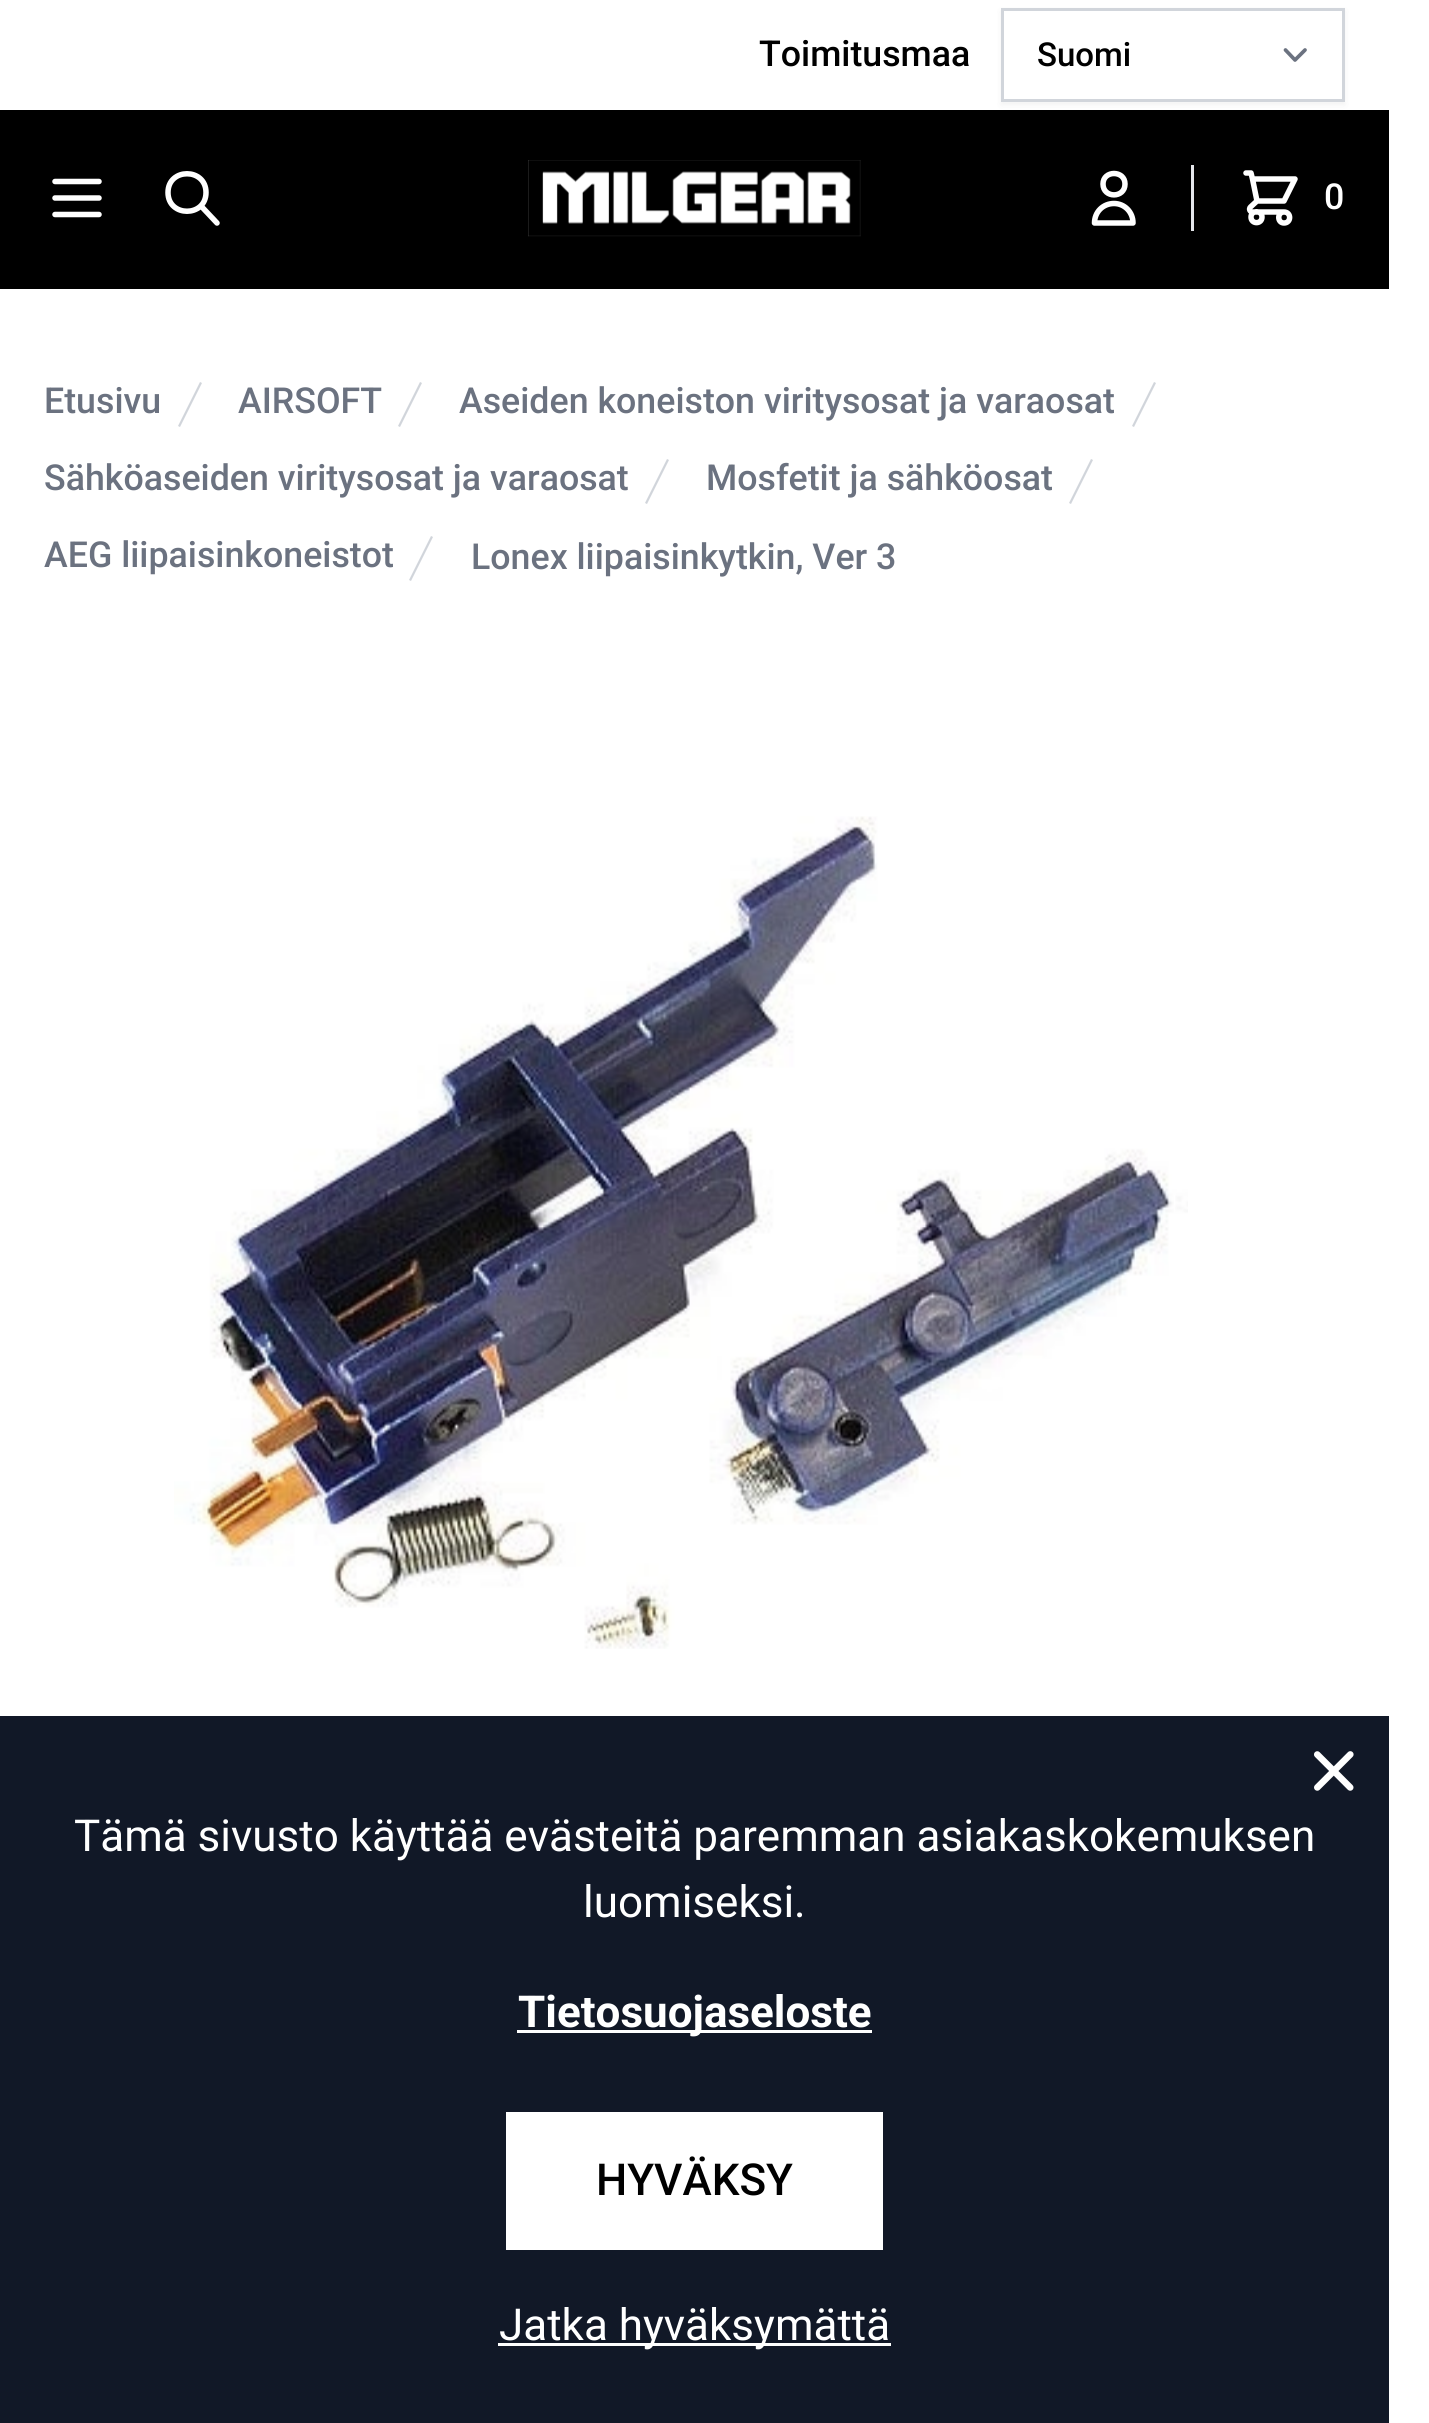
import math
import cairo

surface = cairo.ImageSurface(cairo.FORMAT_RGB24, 1429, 2423)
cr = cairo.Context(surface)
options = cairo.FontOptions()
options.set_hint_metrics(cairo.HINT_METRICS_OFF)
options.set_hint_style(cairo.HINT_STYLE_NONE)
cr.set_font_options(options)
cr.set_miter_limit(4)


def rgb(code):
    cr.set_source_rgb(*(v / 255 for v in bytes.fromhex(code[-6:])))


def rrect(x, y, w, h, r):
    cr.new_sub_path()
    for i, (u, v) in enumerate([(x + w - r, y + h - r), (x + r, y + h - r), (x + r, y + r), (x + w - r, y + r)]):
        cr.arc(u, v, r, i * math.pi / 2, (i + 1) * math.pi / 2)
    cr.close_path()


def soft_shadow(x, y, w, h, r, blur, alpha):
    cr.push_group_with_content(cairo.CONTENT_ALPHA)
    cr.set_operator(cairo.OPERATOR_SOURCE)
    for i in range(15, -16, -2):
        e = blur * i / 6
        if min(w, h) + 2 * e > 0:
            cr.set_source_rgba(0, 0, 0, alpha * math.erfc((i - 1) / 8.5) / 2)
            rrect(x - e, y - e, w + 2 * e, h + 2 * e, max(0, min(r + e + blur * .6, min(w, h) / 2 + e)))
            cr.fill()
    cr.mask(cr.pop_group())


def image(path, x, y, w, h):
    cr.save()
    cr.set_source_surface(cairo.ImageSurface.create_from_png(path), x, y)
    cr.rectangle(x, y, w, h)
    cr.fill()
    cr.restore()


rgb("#ffffff")
cr.paint()
rgb("#000000")
cr.rectangle(0, 110, 1389, 179)
cr.fill()
rgb("#000000")
soft_shadow(1001, 11, 344, 94, 0, 3, 0.05)
rgb("#ffffff")
cr.rectangle(1004, 11, 338, 88)
cr.fill()
cr.new_path()
cr.move_to(1285.5, 50)
cr.line_to(1295, 60)
cr.line_to(1305, 50)
rgb("#6b7280")
cr.set_line_width(3.7)
cr.set_line_cap(cairo.LINE_CAP_ROUND)
cr.set_line_join(cairo.LINE_JOIN_ROUND)
cr.stroke()
cr.rectangle(1002.5, 9.5, 341, 91)
rgb("#d1d5db")
cr.set_line_width(3)
cr.set_line_cap(cairo.LINE_CAP_BUTT)
cr.set_line_join(cairo.LINE_JOIN_MITER)
cr.stroke()
cr.new_path()
cr.move_to(55, 181.5)
cr.line_to(99, 181.5)
cr.move_to(55, 198)
cr.line_to(99, 198)
cr.move_to(55, 214.5)
cr.line_to(99, 214.5)
rgb("#ffffff")
cr.set_line_width(5.5)
cr.set_line_cap(cairo.LINE_CAP_ROUND)
cr.set_line_join(cairo.LINE_JOIN_ROUND)
cr.stroke()
cr.new_path()
cr.move_to(217, 223)
cr.line_to(201, 206)
cr.move_to(206, 192.5)
cr.curve_to(206, 217.5, 168, 217.5, 168, 192.5)
cr.curve_to(168, 167.5, 206, 167.5, 206, 192.5)
cr.close_path()
cr.stroke()
image("img/1.png", 528, 160, 333, 77)
cr.new_path()
cr.move_to(1125, 184)
cr.curve_to(1125, 198.5, 1103, 198.5, 1103, 184)
cr.curve_to(1103, 170, 1125, 170, 1125, 184)
cr.close_path()
cr.move_to(1114, 203.5)
cr.curve_to(1103, 203.5, 1094.5, 212, 1094.5, 223)
cr.line_to(1133, 223)
cr.curve_to(1133, 212, 1124.5, 203.5, 1114, 203.5)
cr.close_path()
cr.stroke()
rgb("#e5e7eb")
cr.rectangle(1191, 165, 3, 66)
cr.fill()
cr.new_path()
cr.move_to(1246, 173)
cr.line_to(1251, 173)
cr.line_to(1252.5, 179)
cr.move_to(1257, 201)
cr.line_to(1284, 201)
cr.line_to(1295, 179)
cr.line_to(1252.5, 179)
cr.move_to(1257, 201)
cr.line_to(1252.5, 179)
cr.move_to(1257, 201)
cr.line_to(1250.5, 207)
cr.curve_to(1248.5, 209, 1250, 212, 1252.5, 212)
cr.line_to(1284, 212)
cr.move_to(1284, 212)
cr.curve_to(1277, 212, 1277, 223, 1284, 223)
cr.curve_to(1291.5, 223, 1291.5, 212, 1284, 212)
cr.close_path()
cr.move_to(1262, 217)
cr.curve_to(1262, 224.5, 1251, 224.5, 1251, 217)
cr.curve_to(1251, 210, 1262, 210, 1262, 217)
cr.close_path()
rgb("#ffffff")
cr.stroke()
rgb("#d1d5db")
cr.new_path()
cr.move_to(178, 426)
cr.line_to(200, 382)
cr.line_to(202, 383)
cr.line_to(180, 427)
cr.close_path()
cr.fill()
cr.new_path()
cr.move_to(398, 426)
cr.line_to(420, 382)
cr.line_to(422, 383)
cr.line_to(400, 427)
cr.close_path()
cr.fill()
cr.new_path()
cr.move_to(1132, 426)
cr.line_to(1154, 382)
cr.line_to(1156, 383)
cr.line_to(1134, 427)
cr.close_path()
cr.fill()
cr.new_path()
cr.move_to(645, 503)
cr.line_to(667, 459)
cr.line_to(669, 460)
cr.line_to(647, 504)
cr.close_path()
cr.fill()
cr.new_path()
cr.move_to(1069, 503)
cr.line_to(1091, 459)
cr.line_to(1093, 460)
cr.line_to(1071, 504)
cr.close_path()
cr.fill()
cr.new_path()
cr.move_to(409, 580)
cr.line_to(431, 536)
cr.line_to(433, 537)
cr.line_to(411, 581)
cr.close_path()
cr.fill()
image("img/2.png", 174, 816, 1014, 833)
rgb("#111827")
cr.rectangle(0, 1716, 1389, 707)
cr.fill()
image("img/3.png", 1314, 1751, 40, 40)
for x, y, w, h, color in [
    (517, 2030, 355, 3, "#ffffff"),
    (506, 2112, 377, 138, "#ffffff"),
    (498, 2343, 393, 3, "#ffffff"),
]:
    rgb(color)
    cr.rectangle(x, y, w, h)
    cr.fill()
cr.select_font_face("Roboto Medium")
cr.set_font_size(35.75)
rgb("#000000")
cr.move_to(759, 66)
cr.show_text("Toimitusmaa")
cr.set_font_size(33)
cr.move_to(1037, 66)
cr.show_text("Suomi")
cr.set_font_size(35.75)
rgb("#ffffff")
cr.move_to(1324, 209)
cr.show_text("0")
rgb("#6b7280")
for x, y, s in [
    (44, 413, "Etusivu"),
    (238, 413, "AIRSOFT"),
    (459, 413, "Aseiden koneiston viritysosat ja varaosat"),
    (44, 490, "Sähköaseiden viritysosat ja varaosat"),
    (706, 490, "Mosfetit ja sähköosat"),
    (44, 567, "AEG liipaisinkoneistot"),
    (471, 569, "Lonex liipaisinkytkin, Ver 3"),
]:
    cr.move_to(x, y)
    cr.show_text(s)
cr.select_font_face("Roboto")
cr.set_font_size(44)
rgb("#ffffff")
cr.move_to(74, 1851)
cr.show_text("Tämä sivusto käyttää evästeitä paremman asiakaskokemuksen")
cr.move_to(583, 1917)
cr.show_text("luomiseksi.")
cr.select_font_face("Roboto", cairo.FONT_SLANT_NORMAL, cairo.FONT_WEIGHT_BOLD)
cr.move_to(518, 2027)
cr.show_text("Tietosuojaseloste")
cr.select_font_face("Roboto Medium")
rgb("#000000")
cr.move_to(596, 2195)
cr.show_text("HYVÄKSY")
cr.select_font_face("Roboto")
rgb("#ffffff")
cr.move_to(499, 2340)
cr.show_text("Jatka hyväksymättä")
surface.write_to_png("page.png")
